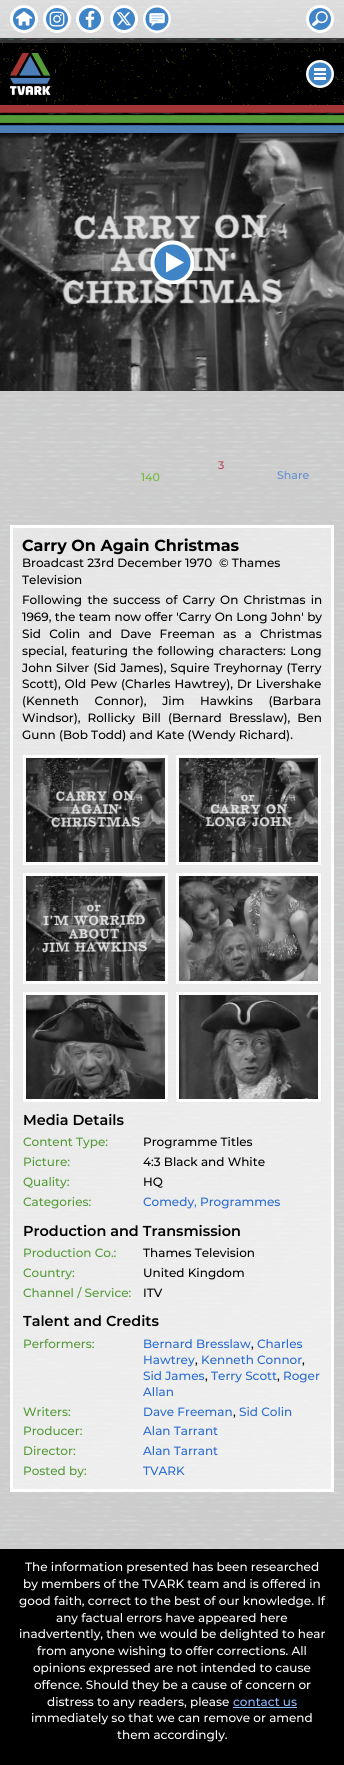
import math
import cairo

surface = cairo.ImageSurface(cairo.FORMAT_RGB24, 344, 1765)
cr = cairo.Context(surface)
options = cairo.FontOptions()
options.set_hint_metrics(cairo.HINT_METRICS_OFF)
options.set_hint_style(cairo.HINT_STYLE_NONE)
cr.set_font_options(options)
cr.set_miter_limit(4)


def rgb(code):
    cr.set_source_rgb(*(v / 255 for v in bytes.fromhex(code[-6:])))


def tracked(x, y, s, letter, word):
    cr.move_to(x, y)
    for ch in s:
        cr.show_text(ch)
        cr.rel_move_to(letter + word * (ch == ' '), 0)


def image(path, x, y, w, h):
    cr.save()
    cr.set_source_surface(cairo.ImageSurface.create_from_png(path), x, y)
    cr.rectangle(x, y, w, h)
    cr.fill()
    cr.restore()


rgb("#ffffff")
cr.paint()
image("img/1.png", 0, 0, 344, 1549)
image("img/2.png", 0, 105, 344, 28)
cr.set_source_rgba(1, 1, 1, 0.8)
cr.rectangle(0, 0, 344, 38)
cr.fill()
image("img/3.png", 10, 5, 28, 28)
image("img/4.png", 43, 5, 28, 28)
image("img/5.png", 76, 5, 28, 28)
image("img/6.png", 110, 5, 28, 28)
image("img/7.png", 143, 5, 28, 28)
image("img/8.png", 306, 5, 28, 28)
image("img/9.png", 0, 43, 344, 62)
image("img/10.png", 10, 53, 41, 42)
rgb("#ffffff")
cr.arc(320, 74, 14, 0, 2 * math.pi)
cr.fill()
rgb("#3e84c7")
cr.arc(320, 74, 11.5, 0, 2 * math.pi)
cr.fill()
rgb("#ffffff")
cr.rectangle(314, 73, 12, 2)
cr.rectangle(314, 77, 12, 3)
cr.rectangle(314, 68, 12, 3)
cr.fill()
cr.set_source_rgba(1, 1, 1, 0.8)
cr.rectangle(0, 391, 344, 1158)
cr.fill()
gradient = cairo.LinearGradient(-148, 689, 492, 1328)
gradient.add_color_stop_rgba(0, 1, 1, 1, 0.5)
gradient.add_color_stop_rgba(1, 1, 1, 1, 0.7)
cr.set_source(gradient)
cr.rectangle(13, 528, 318, 961)
cr.fill()
cr.rectangle(11.5, 526.5, 321, 964)
rgb("#ffffff")
cr.set_line_width(3)
cr.stroke()
image("img/11.png", 0, 133, 344, 258)
cr.save()
cr.rectangle(150, 240, 44, 44)
cr.clip()
cr.arc(172.5, 262.5, 22, 0, 2 * math.pi)
cr.fill()
cr.restore()
rgb("#3e84c7")
cr.arc(172.5, 262.5, 18, 0, 2 * math.pi)
cr.fill()
rgb("#ffffff")
cr.new_path()
cr.move_to(166, 272.5)
cr.line_to(184, 262.5)
cr.line_to(166, 252)
cr.close_path()
cr.fill()
cr.rectangle(22.5, 754.5, 146, 111)
cr.fill_preserve()
rgb("#eaeaea")
cr.set_line_width(1)
cr.stroke()
image("img/12.png", 26, 758, 139, 104)
rgb("#ffffff")
cr.rectangle(175.5, 754.5, 146, 111)
cr.fill_preserve()
rgb("#eaeaea")
cr.stroke()
image("img/13.png", 179, 758, 139, 104)
rgb("#ffffff")
cr.rectangle(22.5, 872.5, 146, 112)
cr.fill_preserve()
rgb("#eaeaea")
cr.stroke()
image("img/14.png", 26, 876, 139, 105)
rgb("#ffffff")
cr.rectangle(175.5, 872.5, 146, 112)
cr.fill_preserve()
rgb("#eaeaea")
cr.stroke()
image("img/15.png", 179, 876, 139, 105)
rgb("#ffffff")
cr.rectangle(22.5, 991.5, 146, 111)
cr.fill_preserve()
rgb("#eaeaea")
cr.stroke()
image("img/16.png", 26, 995, 139, 104)
rgb("#ffffff")
cr.rectangle(175.5, 991.5, 146, 111)
cr.fill_preserve()
rgb("#eaeaea")
cr.stroke()
image("img/17.png", 179, 995, 139, 104)
rgb("#000000")
cr.rectangle(0, 1549, 344, 216)
cr.fill()
rgb("#8dbbff")
cr.rectangle(233, 1707, 64, 1)
cr.fill()
cr.select_font_face("Montserrat Medium")
cr.set_font_size(11)
rgb("#b8495a")
cr.move_to(218, 469)
cr.show_text("3")
rgb("#6cb938")
cr.move_to(141, 481)
cr.show_text("140")
rgb("#628ecf")
cr.move_to(277, 479)
cr.show_text("Share")
cr.select_font_face("Montserrat", cairo.FONT_SLANT_NORMAL, cairo.FONT_WEIGHT_BOLD)
cr.set_font_size(16)
rgb("#000000")
cr.move_to(22, 551)
cr.show_text("Carry On Again Christmas")
cr.select_font_face("Montserrat Medium")
cr.set_font_size(12)
for x, y, s in [
    (22, 567, "Broadcast 23rd December 1970"),
    (219, 567, "© Thames"),
    (22, 584, "Television"),
]:
    cr.move_to(x, y)
    cr.show_text(s)
tracked(22, 604, "Following the success of Carry On Christmas in", 0, 2)
tracked(22, 621, "1969, the team now offer 'Carry On Long John' by", 0, 0.25)
tracked(22, 638, "Sid Colin and Dave Freeman as a Christmas", 0, 5)
tracked(22, 655, "special, featuring the following characters: Long", 0, 1.25)
tracked(22, 672, "John Silver (Sid James), Squire Treyhornay (Terry", 0, 0.75)
tracked(22, 688, "Scott), Old Pew (Charles Hawtrey), Dr Livershake", 0, 0.75)
tracked(22, 705, "(Kenneth Connor), Jim Hawkins (Barbara", 0, 12.5)
tracked(22, 722, "Windsor), Rollicky Bill (Bernard Bresslaw), Ben", 0, 3.75)
cr.move_to(22, 739)
cr.show_text("Gunn (Bob Todd) and Kate (Wendy Richard).")
cr.select_font_face("Montserrat SemiBold")
cr.set_font_size(14.4)
cr.move_to(23, 1125)
cr.show_text("Media Details")
cr.select_font_face("Montserrat Medium")
cr.set_font_size(12)
rgb("#559b38")
cr.move_to(23, 1146)
cr.show_text("Content Type:")
rgb("#000000")
cr.move_to(143, 1146)
cr.show_text("Programme Titles")
rgb("#559b38")
cr.move_to(23, 1166)
cr.show_text("Picture:")
rgb("#000000")
cr.move_to(143, 1166)
cr.show_text("4:3 Black and White")
rgb("#559b38")
cr.move_to(23, 1186)
cr.show_text("Quality:")
rgb("#000000")
cr.move_to(143, 1186)
cr.show_text("HQ")
rgb("#559b38")
cr.move_to(23, 1206)
cr.show_text("Categories:")
rgb("#296bcf")
cr.move_to(143, 1206)
cr.show_text("Comedy")
rgb("#4e7eb7")
cr.move_to(194, 1206)
cr.show_text(",")
rgb("#296bcf")
cr.move_to(200, 1206)
cr.show_text("Programmes")
cr.select_font_face("Montserrat SemiBold")
cr.set_font_size(14.4)
rgb("#000000")
cr.move_to(23, 1236)
cr.show_text("Production and Transmission")
cr.select_font_face("Montserrat Medium")
cr.set_font_size(12)
rgb("#559b38")
cr.move_to(23, 1257)
cr.show_text("Production Co.:")
rgb("#000000")
cr.move_to(143, 1257)
cr.show_text("Thames Television")
rgb("#559b38")
cr.move_to(23, 1277)
cr.show_text("Country:")
rgb("#000000")
cr.move_to(143, 1277)
cr.show_text("United Kingdom")
rgb("#559b38")
cr.move_to(23, 1297)
cr.show_text("Channel / Service:")
rgb("#000000")
cr.move_to(143, 1297)
cr.show_text("ITV")
cr.select_font_face("Montserrat SemiBold")
cr.set_font_size(14.4)
cr.move_to(23, 1326)
cr.show_text("Talent and Credits")
cr.select_font_face("Montserrat Medium")
cr.set_font_size(12)
rgb("#559b38")
cr.move_to(23, 1348)
cr.show_text("Performers:")
rgb("#296bcf")
cr.move_to(143, 1348)
cr.show_text("Bernard Bresslaw")
rgb("#000000")
cr.move_to(251, 1348)
cr.show_text(",")
rgb("#296bcf")
cr.move_to(257, 1348)
cr.show_text("Charles")
cr.move_to(143, 1364)
cr.show_text("Hawtrey")
rgb("#000000")
cr.move_to(195, 1364)
cr.show_text(",")
rgb("#296bcf")
cr.move_to(201, 1364)
cr.show_text("Kenneth Connor")
rgb("#000000")
cr.move_to(302, 1364)
cr.show_text(",")
rgb("#296bcf")
cr.move_to(143, 1380)
cr.show_text("Sid James")
rgb("#000000")
cr.move_to(205, 1380)
cr.show_text(",")
rgb("#296bcf")
cr.move_to(211, 1380)
cr.show_text("Terry Scott")
rgb("#000000")
cr.move_to(277, 1380)
cr.show_text(",")
rgb("#296bcf")
cr.move_to(283, 1380)
cr.show_text("Roger")
cr.move_to(143, 1396)
cr.show_text("Allan")
rgb("#559b38")
cr.move_to(23, 1416)
cr.show_text("Writers:")
rgb("#296bcf")
cr.move_to(143, 1416)
cr.show_text("Dave Freeman")
rgb("#000000")
cr.move_to(233, 1416)
cr.show_text(",")
rgb("#296bcf")
cr.move_to(239, 1416)
cr.show_text("Sid Colin")
rgb("#559b38")
cr.move_to(23, 1435)
cr.show_text("Producer:")
rgb("#296bcf")
cr.move_to(143, 1435)
cr.show_text("Alan Tarrant")
rgb("#559b38")
cr.move_to(23, 1455)
cr.show_text("Director:")
rgb("#296bcf")
cr.move_to(143, 1455)
cr.show_text("Alan Tarrant")
rgb("#559b38")
cr.move_to(23, 1475)
cr.show_text("Posted by:")
rgb("#296bcf")
cr.move_to(143, 1475)
cr.show_text("TVARK")
rgb("#ffffff")
for x, y, s in [
    (25, 1571, "The information presented has been researched"),
    (23, 1588, "by members of the TVARK team and is offered in"),
    (19, 1605, "good faith, correct to the best of our knowledge. If"),
    (56, 1622, "any factual errors have appeared here"),
    (19, 1638, "inadvertently, then we would be delighted to hear"),
    (37, 1655, "from anyone wishing to offer corrections. All"),
    (33, 1672, "opinions expressed are not intended to cause"),
    (34, 1689, "offence. Should they be a cause of concern or"),
    (47, 1706, "distress to any readers, please"),
]:
    cr.move_to(x, y)
    cr.show_text(s)
rgb("#8dbbff")
cr.move_to(233, 1706)
cr.show_text("contact us")
rgb("#ffffff")
cr.move_to(31, 1722)
cr.show_text("immediately so that we can remove or amend")
cr.move_to(117, 1739)
cr.show_text("them accordingly.")
surface.write_to_png("page.png")
